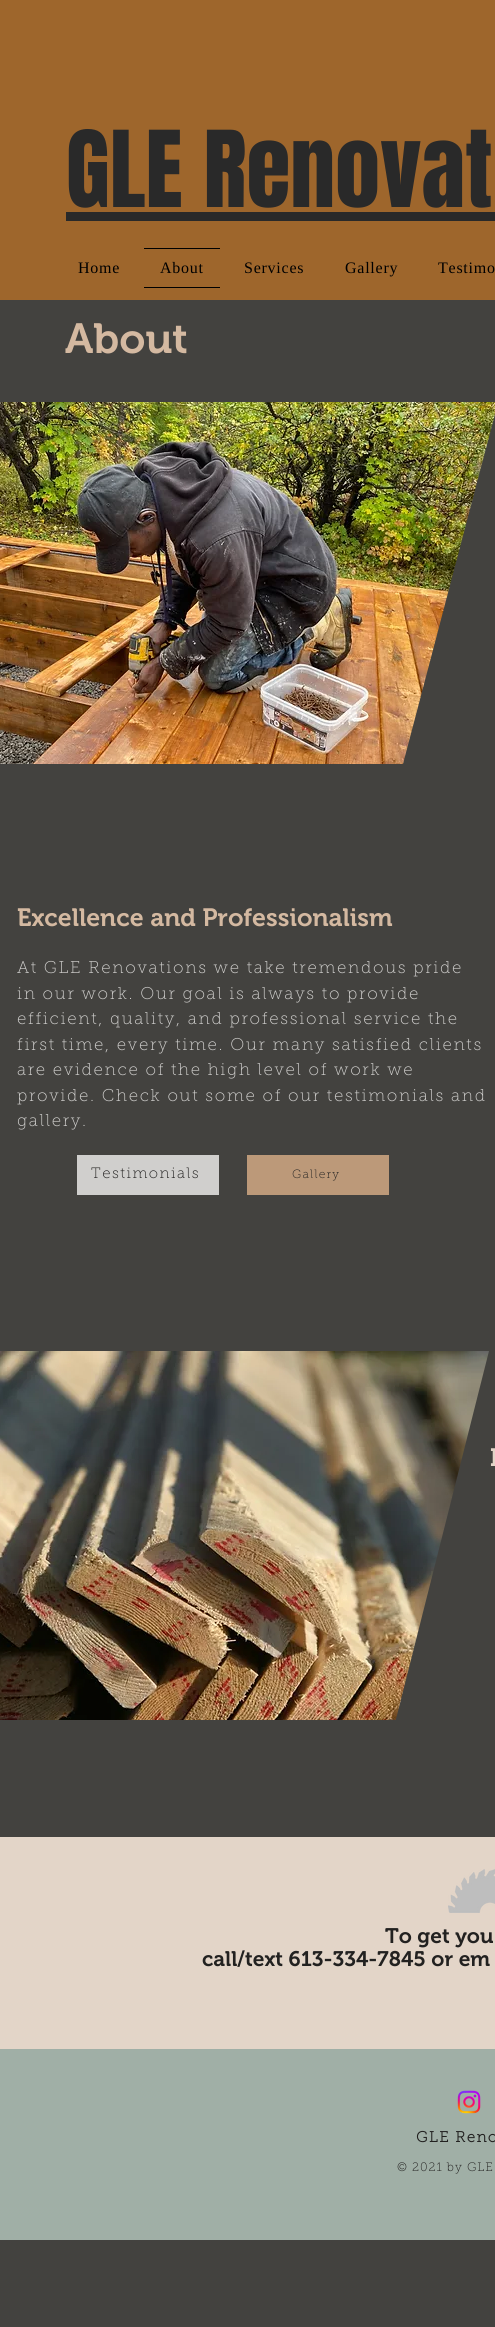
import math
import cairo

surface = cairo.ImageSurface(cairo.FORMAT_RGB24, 495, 2327)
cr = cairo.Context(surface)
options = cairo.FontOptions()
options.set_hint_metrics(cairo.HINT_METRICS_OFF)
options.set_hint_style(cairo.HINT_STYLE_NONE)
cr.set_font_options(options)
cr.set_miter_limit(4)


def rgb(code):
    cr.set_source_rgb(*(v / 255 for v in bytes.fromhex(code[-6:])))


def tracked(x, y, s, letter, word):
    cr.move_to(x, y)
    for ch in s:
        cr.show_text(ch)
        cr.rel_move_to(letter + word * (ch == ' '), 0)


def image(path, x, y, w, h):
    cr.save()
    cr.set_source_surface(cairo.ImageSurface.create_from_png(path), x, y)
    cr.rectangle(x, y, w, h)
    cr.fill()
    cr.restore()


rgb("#43423f")
cr.paint()
for x, y, w, h, color in [
    (0, 0, 495, 300, "#9e662c"),
    (66, 212, 429, 9, "#292929"),
    (144, 248, 76, 1, "#000000"),
    (144, 287, 76, 1, "#000000"),
]:
    rgb(color)
    cr.rectangle(x, y, w, h)
    cr.fill()
image("img/1.png", 0, 402, 495, 362)
rgb("#43423f")
cr.new_path()
cr.move_to(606, 764)
cr.line_to(403, 764)
cr.line_to(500, 395)
cr.line_to(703, 395)
cr.close_path()
cr.fill()
rgb("#d0cfcd")
cr.rectangle(77, 1155, 142, 40)
cr.fill()
rgb("#bc9979")
cr.rectangle(247, 1155, 142, 40)
cr.fill()
image("img/2.png", 0, 1351, 489, 369)
rgb("#43423f")
cr.new_path()
cr.move_to(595, 1735)
cr.line_to(392, 1735)
cr.line_to(489, 1351)
cr.line_to(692, 1351)
cr.close_path()
cr.fill()
rgb("#e3d5c8")
cr.rectangle(0, 1837, 495, 212)
cr.fill()
image("img/3.png", 448, 1869, 47, 44)
rgb("#a0afa6")
cr.rectangle(0, 2049, 495, 191)
cr.fill()
image("img/4.png", 457, 2090, 24, 24)
cr.select_font_face("Anton")
cr.set_font_size(90)
rgb("#292929")
cr.move_to(66, 207)
cr.show_text("GLE Renovat")
cr.select_font_face("Liberation Serif")
cr.set_font_size(16)
rgb("#000000")
for x, y, s in [
    (78, 273, "Home"),
    (160, 273, "About"),
    (244, 273, "Services"),
    (345, 273, "Gallery"),
    (438, 273, "Testimo"),
]:
    tracked(x, y, s, 0.75, 0)
cr.select_font_face("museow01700 SemiBold")
cr.set_font_size(42)
rgb("#d4b9a1")
cr.move_to(65, 353)
cr.show_text("About")
cr.set_font_size(25)
cr.move_to(17, 926)
cr.show_text("Excellence and Professionalism")
cr.select_font_face("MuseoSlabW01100 Thin")
cr.set_font_size(17)
rgb("#d0cfcd")
for x, y, s in [
    (17, 973, "At GLE Renovations we take tremendous pride"),
    (17, 999, "in our work. Our goal is always to provide"),
    (17, 1024, "efficient, quality, and professional service the"),
    (17, 1050, "first time, every time. Our many satisfied clients"),
    (17, 1075, "are evidence of the high level of work we"),
    (17, 1101, "provide. Check out some of our testimonials and"),
    (17, 1126, "gallery."),
]:
    tracked(x, y, s, 1.7, 0)
cr.set_font_size(15)
rgb("#222120")
tracked(91, 1178, "Testimonials", 1.5, 0)
cr.set_font_size(12)
tracked(292, 1178, "Gallery", 1.25, 0)
cr.select_font_face("museow01700 SemiBold")
cr.set_font_size(25)
rgb("#e3d5c8")
cr.move_to(490, 1466)
cr.show_text("I")
cr.set_font_size(21)
rgb("#222120")
cr.move_to(385, 1943)
cr.show_text("To get you")
cr.move_to(202, 1966)
cr.show_text("call/text 613-334-7845 or em")
cr.select_font_face("MuseoSlabW01100", cairo.FONT_SLANT_NORMAL, cairo.FONT_WEIGHT_BOLD)
cr.set_font_size(15)
tracked(416, 2142, "GLE Reno", 1.5, 0)
cr.select_font_face("MuseoSlabW01100 Thin")
cr.set_font_size(12.25)
tracked(397, 2171, "© 2021 by GLE", 1, 0)
surface.write_to_png("page.png")
